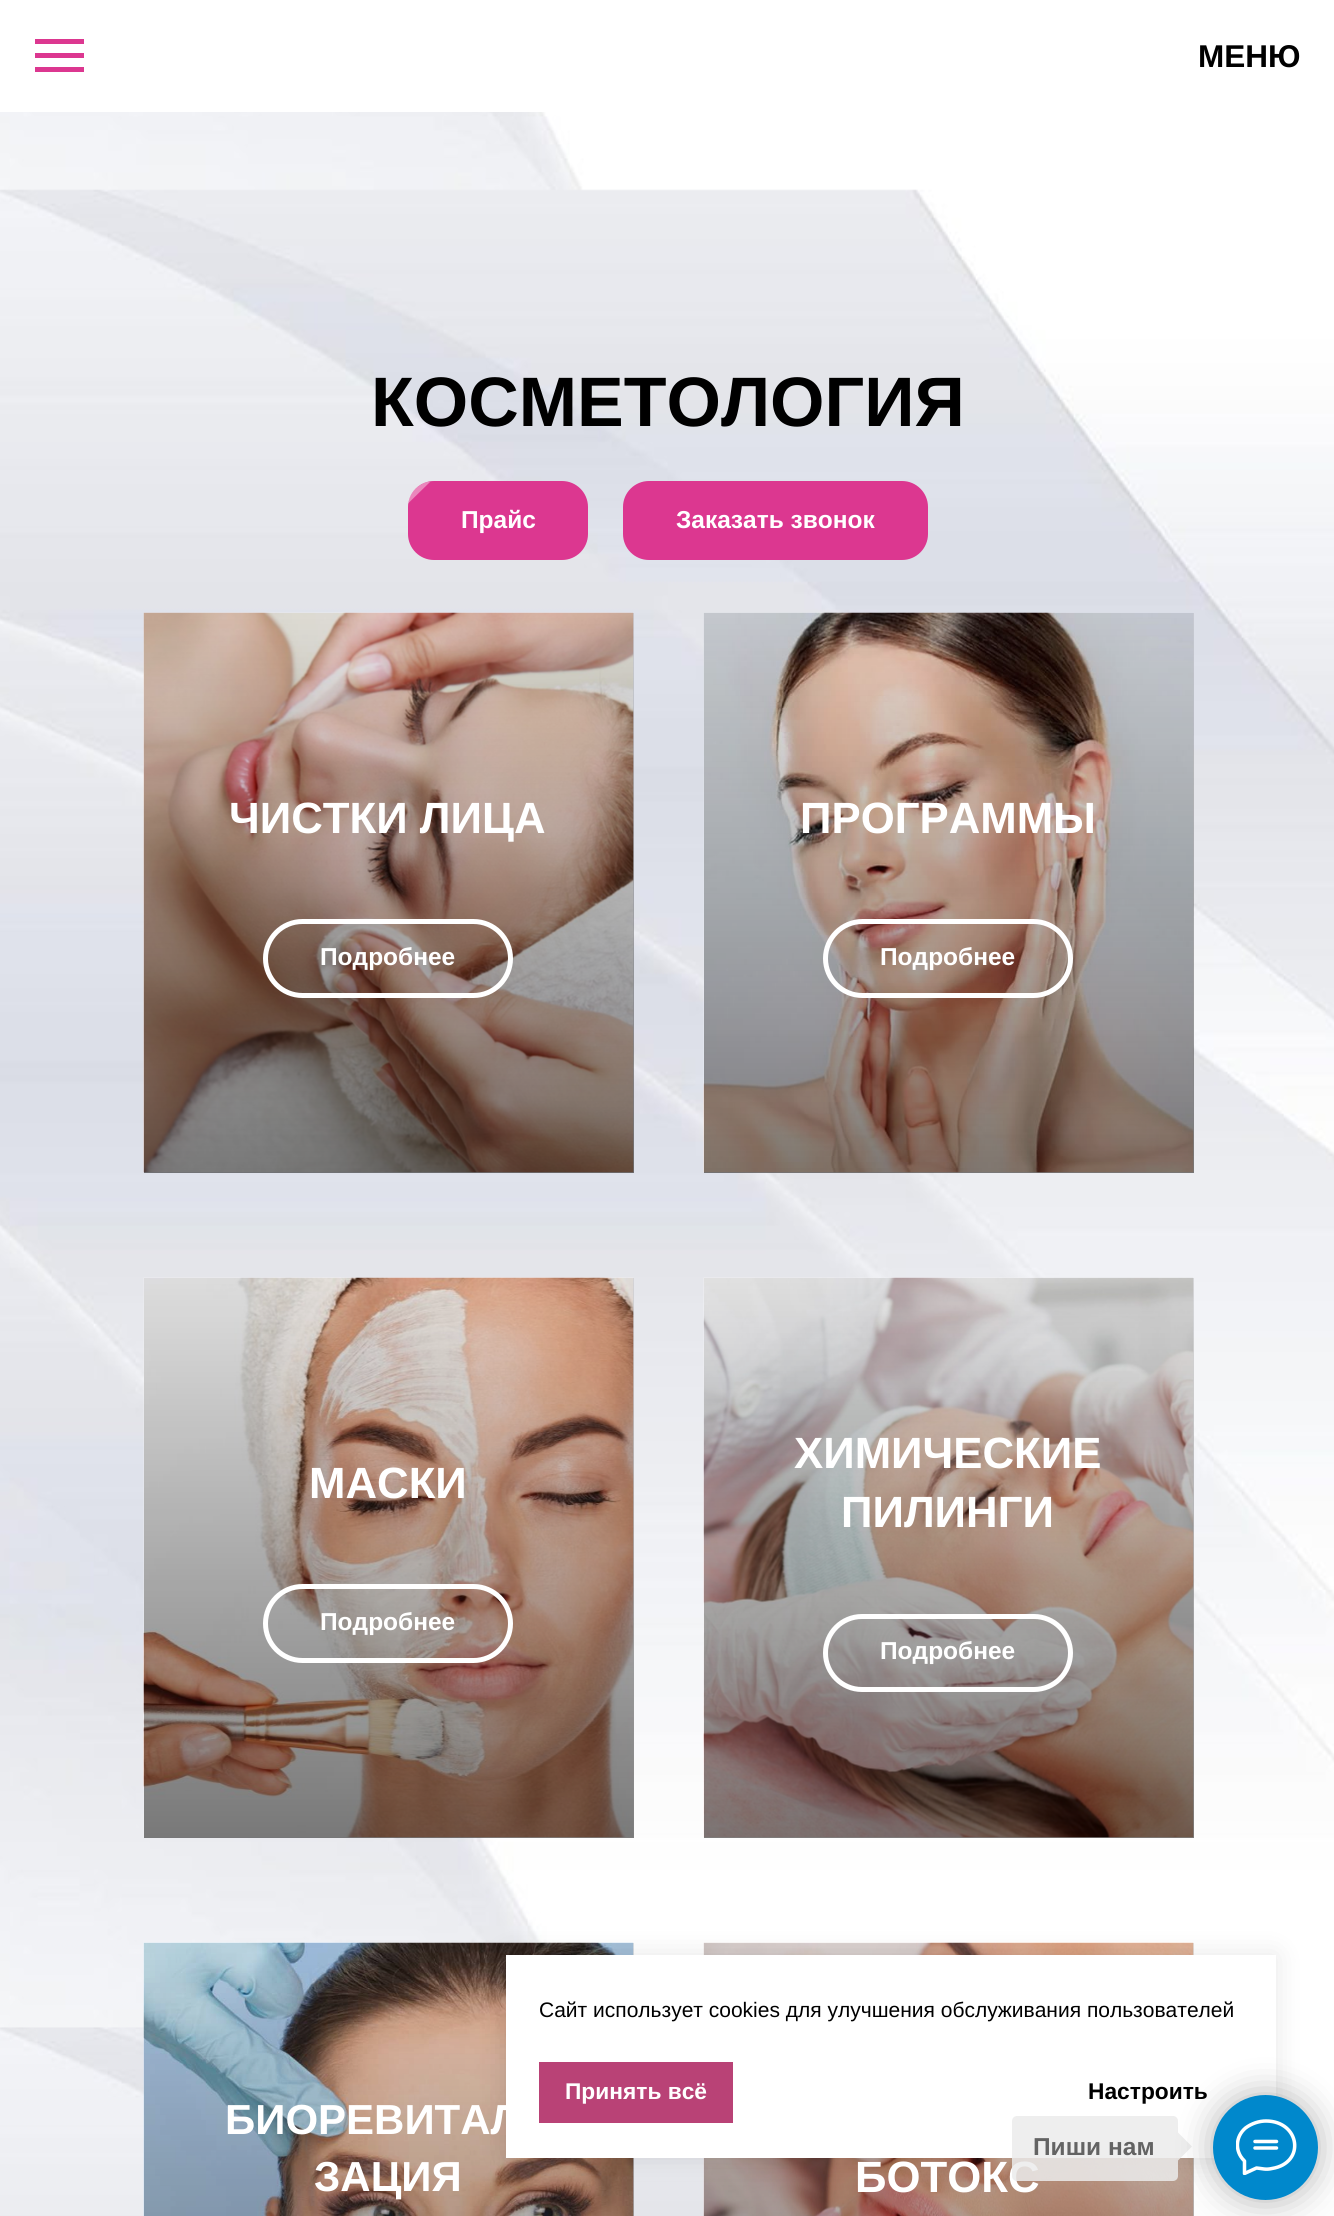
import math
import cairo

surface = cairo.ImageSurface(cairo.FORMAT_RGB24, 1334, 2216)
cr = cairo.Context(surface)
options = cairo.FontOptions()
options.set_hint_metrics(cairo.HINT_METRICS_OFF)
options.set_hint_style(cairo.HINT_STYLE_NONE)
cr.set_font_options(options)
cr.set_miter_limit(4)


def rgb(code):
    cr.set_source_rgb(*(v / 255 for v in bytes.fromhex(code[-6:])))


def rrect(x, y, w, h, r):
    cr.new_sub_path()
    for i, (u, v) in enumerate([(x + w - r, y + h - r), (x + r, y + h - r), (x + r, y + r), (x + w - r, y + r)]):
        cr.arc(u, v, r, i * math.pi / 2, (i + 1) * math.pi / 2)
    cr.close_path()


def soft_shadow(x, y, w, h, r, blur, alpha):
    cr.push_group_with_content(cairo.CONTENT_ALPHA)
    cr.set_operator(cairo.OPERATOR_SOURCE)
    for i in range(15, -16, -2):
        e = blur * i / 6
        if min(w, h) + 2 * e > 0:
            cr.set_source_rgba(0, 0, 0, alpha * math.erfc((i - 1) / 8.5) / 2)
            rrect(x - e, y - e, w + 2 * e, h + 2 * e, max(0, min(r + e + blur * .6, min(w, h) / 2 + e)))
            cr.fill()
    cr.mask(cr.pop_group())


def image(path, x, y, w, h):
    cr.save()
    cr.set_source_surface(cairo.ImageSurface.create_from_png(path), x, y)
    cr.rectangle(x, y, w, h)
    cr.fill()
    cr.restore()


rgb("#ffffff")
cr.paint()
for x, y, w, h, color in [
    (35, 39, 49, 5, "#dc3790"),
    (35, 53, 49, 5, "#dc3790"),
    (35, 67, 49, 5, "#dc3790"),
]:
    rgb(color)
    cr.rectangle(x, y, w, h)
    cr.fill()
image("img/1.png", 0, 112, 1334, 2104)
rrect(408, 481, 180, 79, 26)
cr.fill()
gradient = cairo.LinearGradient(312, 521, 391, 521)
gradient.add_color_stop_rgba(0, 1, 1, 1, 0.1)
gradient.add_color_stop_rgba(1, 1, 1, 1, 0.4)
cr.set_source(gradient)
cr.new_path()
cr.move_to(408, 503.5)
cr.curve_to(409.5, 493, 417, 485, 427, 482)
cr.line_to(430, 482)
cr.close_path()
cr.fill()
rgb("#dc3790")
rrect(623, 481, 305, 79, 26)
cr.fill()
image("img/2.png", 143, 612, 491, 561)
gradient = cairo.LinearGradient(388, 613, 389, 1173)
gradient.add_color_stop_rgba(0, 0.059, 0.059, 0.059, 0.1)
gradient.add_color_stop_rgba(1, 0, 0, 0, 0.5)
cr.set_source(gradient)
cr.rectangle(144, 613, 490, 560)
cr.fill()
rrect(265.5, 921.5, 245, 74, 37)
rgb("#ffffff")
cr.set_line_width(5)
cr.stroke()
image("img/3.png", 703, 612, 491, 561)
gradient = cairo.LinearGradient(949, 613, 949, 1173)
gradient.add_color_stop_rgba(0, 0.059, 0.059, 0.059, 0.1)
gradient.add_color_stop_rgba(1, 0, 0, 0, 0.5)
cr.set_source(gradient)
cr.rectangle(704, 613, 490, 560)
cr.fill()
rrect(825.5, 921.5, 245, 74, 37)
rgb("#ffffff")
cr.stroke()
image("img/4.png", 143, 1277, 491, 561)
gradient = cairo.LinearGradient(388, 1278, 389, 1838)
gradient.add_color_stop_rgba(0, 0.059, 0.059, 0.059, 0.1)
gradient.add_color_stop_rgba(1, 0, 0, 0, 0.5)
cr.set_source(gradient)
cr.rectangle(144, 1278, 490, 560)
cr.fill()
rrect(265.5, 1586.5, 245, 74, 37)
rgb("#ffffff")
cr.stroke()
image("img/5.png", 703, 1277, 491, 561)
gradient = cairo.LinearGradient(949, 1278, 949, 1838)
gradient.add_color_stop_rgba(0, 0.059, 0.059, 0.059, 0.1)
gradient.add_color_stop_rgba(1, 0, 0, 0, 0.5)
cr.set_source(gradient)
cr.rectangle(704, 1278, 490, 560)
cr.fill()
rrect(825.5, 1616.5, 245, 73, 36.5)
rgb("#ffffff")
cr.stroke()
image("img/6.png", 143, 1942, 491, 274)
gradient = cairo.LinearGradient(388, 1943, 389, 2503)
gradient.add_color_stop_rgba(0, 0.059, 0.059, 0.059, 0.1)
gradient.add_color_stop_rgba(1, 0, 0, 0, 0.5)
cr.set_source(gradient)
cr.rectangle(144, 1943, 490, 273)
cr.fill()
image("img/7.png", 703, 1942, 491, 274)
gradient = cairo.LinearGradient(949, 1943, 949, 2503)
gradient.add_color_stop_rgba(0, 0.059, 0.059, 0.059, 0.1)
gradient.add_color_stop_rgba(1, 0, 0, 0, 0.5)
cr.set_source(gradient)
cr.rectangle(704, 1943, 490, 273)
cr.fill()
rgb("#000000")
soft_shadow(506, 1955, 770, 203, 0, 13, 0.1)
rgb("#ffffff")
cr.rectangle(506, 1955, 770, 203)
cr.fill()
rgb("#b94276")
cr.rectangle(539, 2062, 194, 61)
cr.fill()
cr.set_source_rgba(0.922, 0.922, 0.922, 0.85)
cr.new_path()
cr.move_to(1178, 2160.5)
cr.line_to(1178, 2132.5)
cr.line_to(1192, 2146.5)
cr.close_path()
cr.fill()
cr.select_font_face("Liberation Sans", cairo.FONT_SLANT_NORMAL, cairo.FONT_WEIGHT_BOLD)
cr.set_font_size(31.5)
rgb("#000000")
cr.move_to(1198, 67)
cr.show_text("МЕНЮ")
cr.set_font_size(70)
cr.move_to(371, 426)
cr.show_text("КОСМЕТОЛОГИЯ")
cr.set_font_size(24.5)
rgb("#ffffff")
cr.move_to(461, 528)
cr.show_text("Прайс")
cr.move_to(676, 528)
cr.show_text("Заказать звонок")
cr.set_font_size(43.75)
cr.move_to(229, 833)
cr.show_text("ЧИСТКИ ЛИЦА")
cr.set_font_size(24.5)
cr.move_to(320, 965)
cr.show_text("Подробнее")
cr.set_font_size(43.75)
cr.move_to(800, 833)
cr.show_text("ПРОГРАММЫ")
cr.set_font_size(24.5)
cr.move_to(880, 965)
cr.show_text("Подробнее")
cr.set_font_size(43.75)
cr.move_to(309, 1498)
cr.show_text("МАСКИ")
cr.set_font_size(24.5)
cr.move_to(320, 1630)
cr.show_text("Подробнее")
cr.set_font_size(43.75)
cr.move_to(794, 1468)
cr.show_text("ХИМИЧЕСКИЕ")
cr.move_to(841, 1527)
cr.show_text("ПИЛИНГИ")
cr.set_font_size(24.5)
cr.move_to(880, 1659)
cr.show_text("Подробнее")
cr.set_font_size(42)
cr.move_to(225, 2134)
cr.show_text("БИОРЕВИТАЛ")
cr.move_to(314, 2191)
cr.show_text("ЗАЦИЯ")
cr.set_font_size(43.75)
cr.move_to(855, 2192)
cr.show_text("БОТОКС")
cr.select_font_face("Liberation Sans")
cr.set_font_size(21)
rgb("#000000")
cr.move_to(539, 2017)
cr.show_text("Сайт использует cookies для улучшения обслуживания пользователей")
cr.select_font_face("Liberation Sans", cairo.FONT_SLANT_NORMAL, cairo.FONT_WEIGHT_BOLD)
cr.set_font_size(22.75)
rgb("#ffffff")
cr.move_to(565, 2099)
cr.show_text("Принять всё")
rgb("#000000")
cr.move_to(1088, 2099)
cr.show_text("Настроить")
cr.set_source_rgba(0.922, 0.922, 0.922, 0.85)
rrect(1012, 2116, 166, 65, 5)
cr.fill()
cr.set_font_size(24.5)
rgb("#636363")
cr.move_to(1033, 2155)
cr.show_text("Пиши нам")
rgb("#000000")
soft_shadow(1213, 2095, 105, 105, 52.5, 17.5, 0.3)
rgb("#0088cc")
cr.arc(1265.5, 2147.5, 52.5, 0, 2 * math.pi)
cr.fill()
cr.save()
cr.rectangle(1236, 2119, 61, 56)
cr.clip()
cr.new_path()
cr.move_to(1255, 2141.5)
cr.line_to(1276.5, 2141.5)
cr.move_to(1255, 2148)
cr.line_to(1276.5, 2148)
cr.move_to(1244, 2160.5)
cr.curve_to(1234.5, 2151, 1235.5, 2136.5, 1245.5, 2128)
cr.curve_to(1251.5, 2123.5, 1259, 2121, 1266, 2121)
cr.curve_to(1300, 2121, 1306, 2163, 1272, 2168.5)
cr.curve_to(1265.5, 2170, 1262.5, 2168.5, 1256.5, 2168)
cr.line_to(1244.5, 2173.5)
cr.line_to(1244.5, 2161)
cr.close_path()
rgb("#ffffff")
cr.set_line_width(3.5)
cr.set_line_cap(cairo.LINE_CAP_ROUND)
cr.set_line_join(cairo.LINE_JOIN_ROUND)
cr.stroke()
cr.restore()
surface.write_to_png("page.png")
